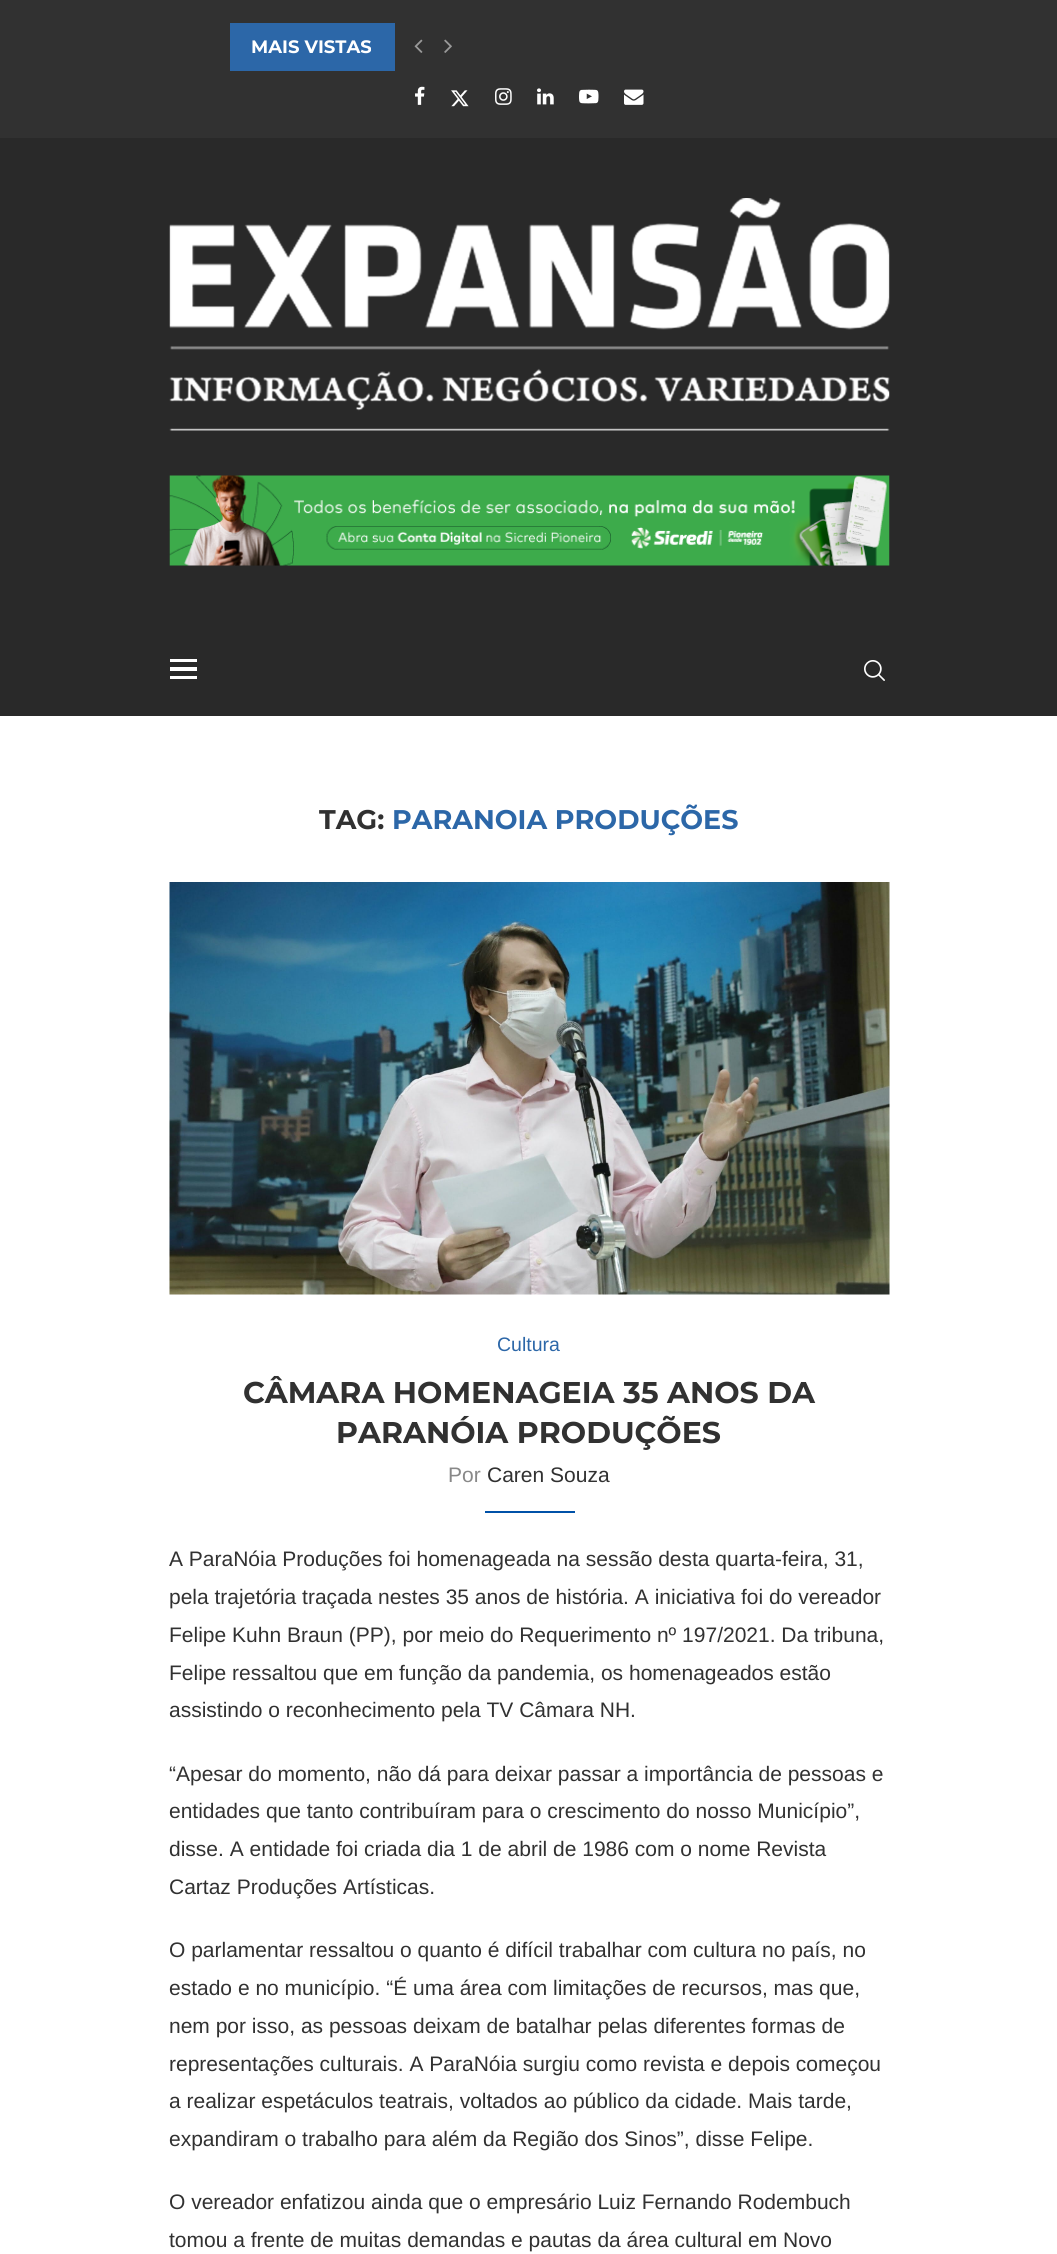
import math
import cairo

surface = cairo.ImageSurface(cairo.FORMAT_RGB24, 1057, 2254)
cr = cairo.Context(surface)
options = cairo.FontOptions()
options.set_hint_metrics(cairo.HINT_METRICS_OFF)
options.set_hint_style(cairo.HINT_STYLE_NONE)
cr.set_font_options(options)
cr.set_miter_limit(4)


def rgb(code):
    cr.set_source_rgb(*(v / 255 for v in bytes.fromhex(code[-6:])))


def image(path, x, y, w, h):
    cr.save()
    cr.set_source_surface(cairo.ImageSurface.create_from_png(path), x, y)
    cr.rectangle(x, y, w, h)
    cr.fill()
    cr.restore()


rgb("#ffffff")
cr.paint()
rgb("#313131")
cr.rectangle(0, 0, 1057, 138)
cr.fill()
rgb("#2c67a8")
cr.rectangle(230, 23, 165, 48)
cr.fill()
image("img/1.png", 414, 39, 9, 14)
image("img/2.png", 444, 39, 8, 14)
image("img/3.png", 415, 86, 10, 19)
image("img/4.png", 451, 90, 18, 17)
image("img/5.png", 495, 88, 17, 17)
image("img/6.png", 537, 88, 17, 17)
image("img/7.png", 579, 89, 20, 15)
image("img/8.png", 624, 89, 20, 16)
for x, y, w, h, color in [
    (0, 138, 1057, 578, "#292929"),
    (170, 659, 27, 3, "#ffffff"),
    (170, 667, 27, 4, "#ffffff"),
    (170, 676, 27, 3, "#ffffff"),
]:
    rgb(color)
    cr.rectangle(x, y, w, h)
    cr.fill()
image("img/9.png", 864, 660, 21, 21)
image("img/10.png", 169, 198, 721, 233)
image("img/11.png", 169, 475, 721, 91)
image("img/12.png", 169, 882, 721, 413)
rgb("#0051a8")
cr.rectangle(485, 1511, 90, 2)
cr.fill()
cr.select_font_face("Montserrat", cairo.FONT_SLANT_NORMAL, cairo.FONT_WEIGHT_BOLD)
cr.set_font_size(18)
rgb("#ffffff")
cr.move_to(251, 53)
cr.show_text("MAIS VISTAS")
cr.set_font_size(27)
rgb("#313131")
cr.move_to(319, 829)
cr.show_text("TAG:")
rgb("#2c67a8")
cr.move_to(392, 829)
cr.show_text("PARANOIA PRODUÇÕES")
cr.select_font_face("Liberation Sans")
cr.set_font_size(19.5)
cr.move_to(497, 1351)
cr.show_text("Cultura")
cr.select_font_face("Montserrat", cairo.FONT_SLANT_NORMAL, cairo.FONT_WEIGHT_BOLD)
cr.set_font_size(30)
rgb("#313131")
cr.move_to(243, 1403)
cr.show_text("CÂMARA HOMENAGEIA 35 ANOS DA")
cr.move_to(336, 1443)
cr.show_text("PARANÓIA PRODUÇÕES")
cr.select_font_face("Liberation Sans")
cr.set_font_size(21)
rgb("#888888")
cr.move_to(448, 1482)
cr.show_text("Por")
rgb("#313131")
for x, y, s in [
    (487, 1482, "Caren Souza"),
    (169, 1566, "A ParaNóia Produções foi homenageada na sessão desta quarta-feira, 31,"),
    (169, 1604, "pela trajetória traçada nestes 35 anos de história. A iniciativa foi do vereador"),
    (169, 1642, "Felipe Kuhn Braun (PP), por meio do Requerimento nº 197/2021. Da tribuna,"),
    (169, 1680, "Felipe ressaltou que em função da pandemia, os homenageados estão"),
    (169, 1717, "assistindo o reconhecimento pela TV Câmara NH."),
    (169, 1781, "“Apesar do momento, não dá para deixar passar a importância de pessoas e"),
    (169, 1818, "entidades que tanto contribuíram para o crescimento do nosso Município”,"),
    (169, 1856, "disse. A entidade foi criada dia 1 de abril de 1986 com o nome Revista"),
    (169, 1894, "Cartaz Produções Artísticas."),
    (169, 1957, "O parlamentar ressaltou o quanto é difícil trabalhar com cultura no país, no"),
    (169, 1995, "estado e no município. “É uma área com limitações de recursos, mas que,"),
    (169, 2033, "nem por isso, as pessoas deixam de batalhar pelas diferentes formas de"),
    (169, 2071, "representações culturais. A ParaNóia surgiu como revista e depois começou"),
    (169, 2108, "a realizar espetáculos teatrais, voltados ao público da cidade. Mais tarde,"),
    (169, 2146, "expandiram o trabalho para além da Região dos Sinos”, disse Felipe."),
    (169, 2209, "O vereador enfatizou ainda que o empresário Luiz Fernando Rodembuch"),
    (169, 2247, "tomou a frente de muitas demandas e pautas da área cultural em Novo"),
]:
    cr.move_to(x, y)
    cr.show_text(s)
surface.write_to_png("page.png")
